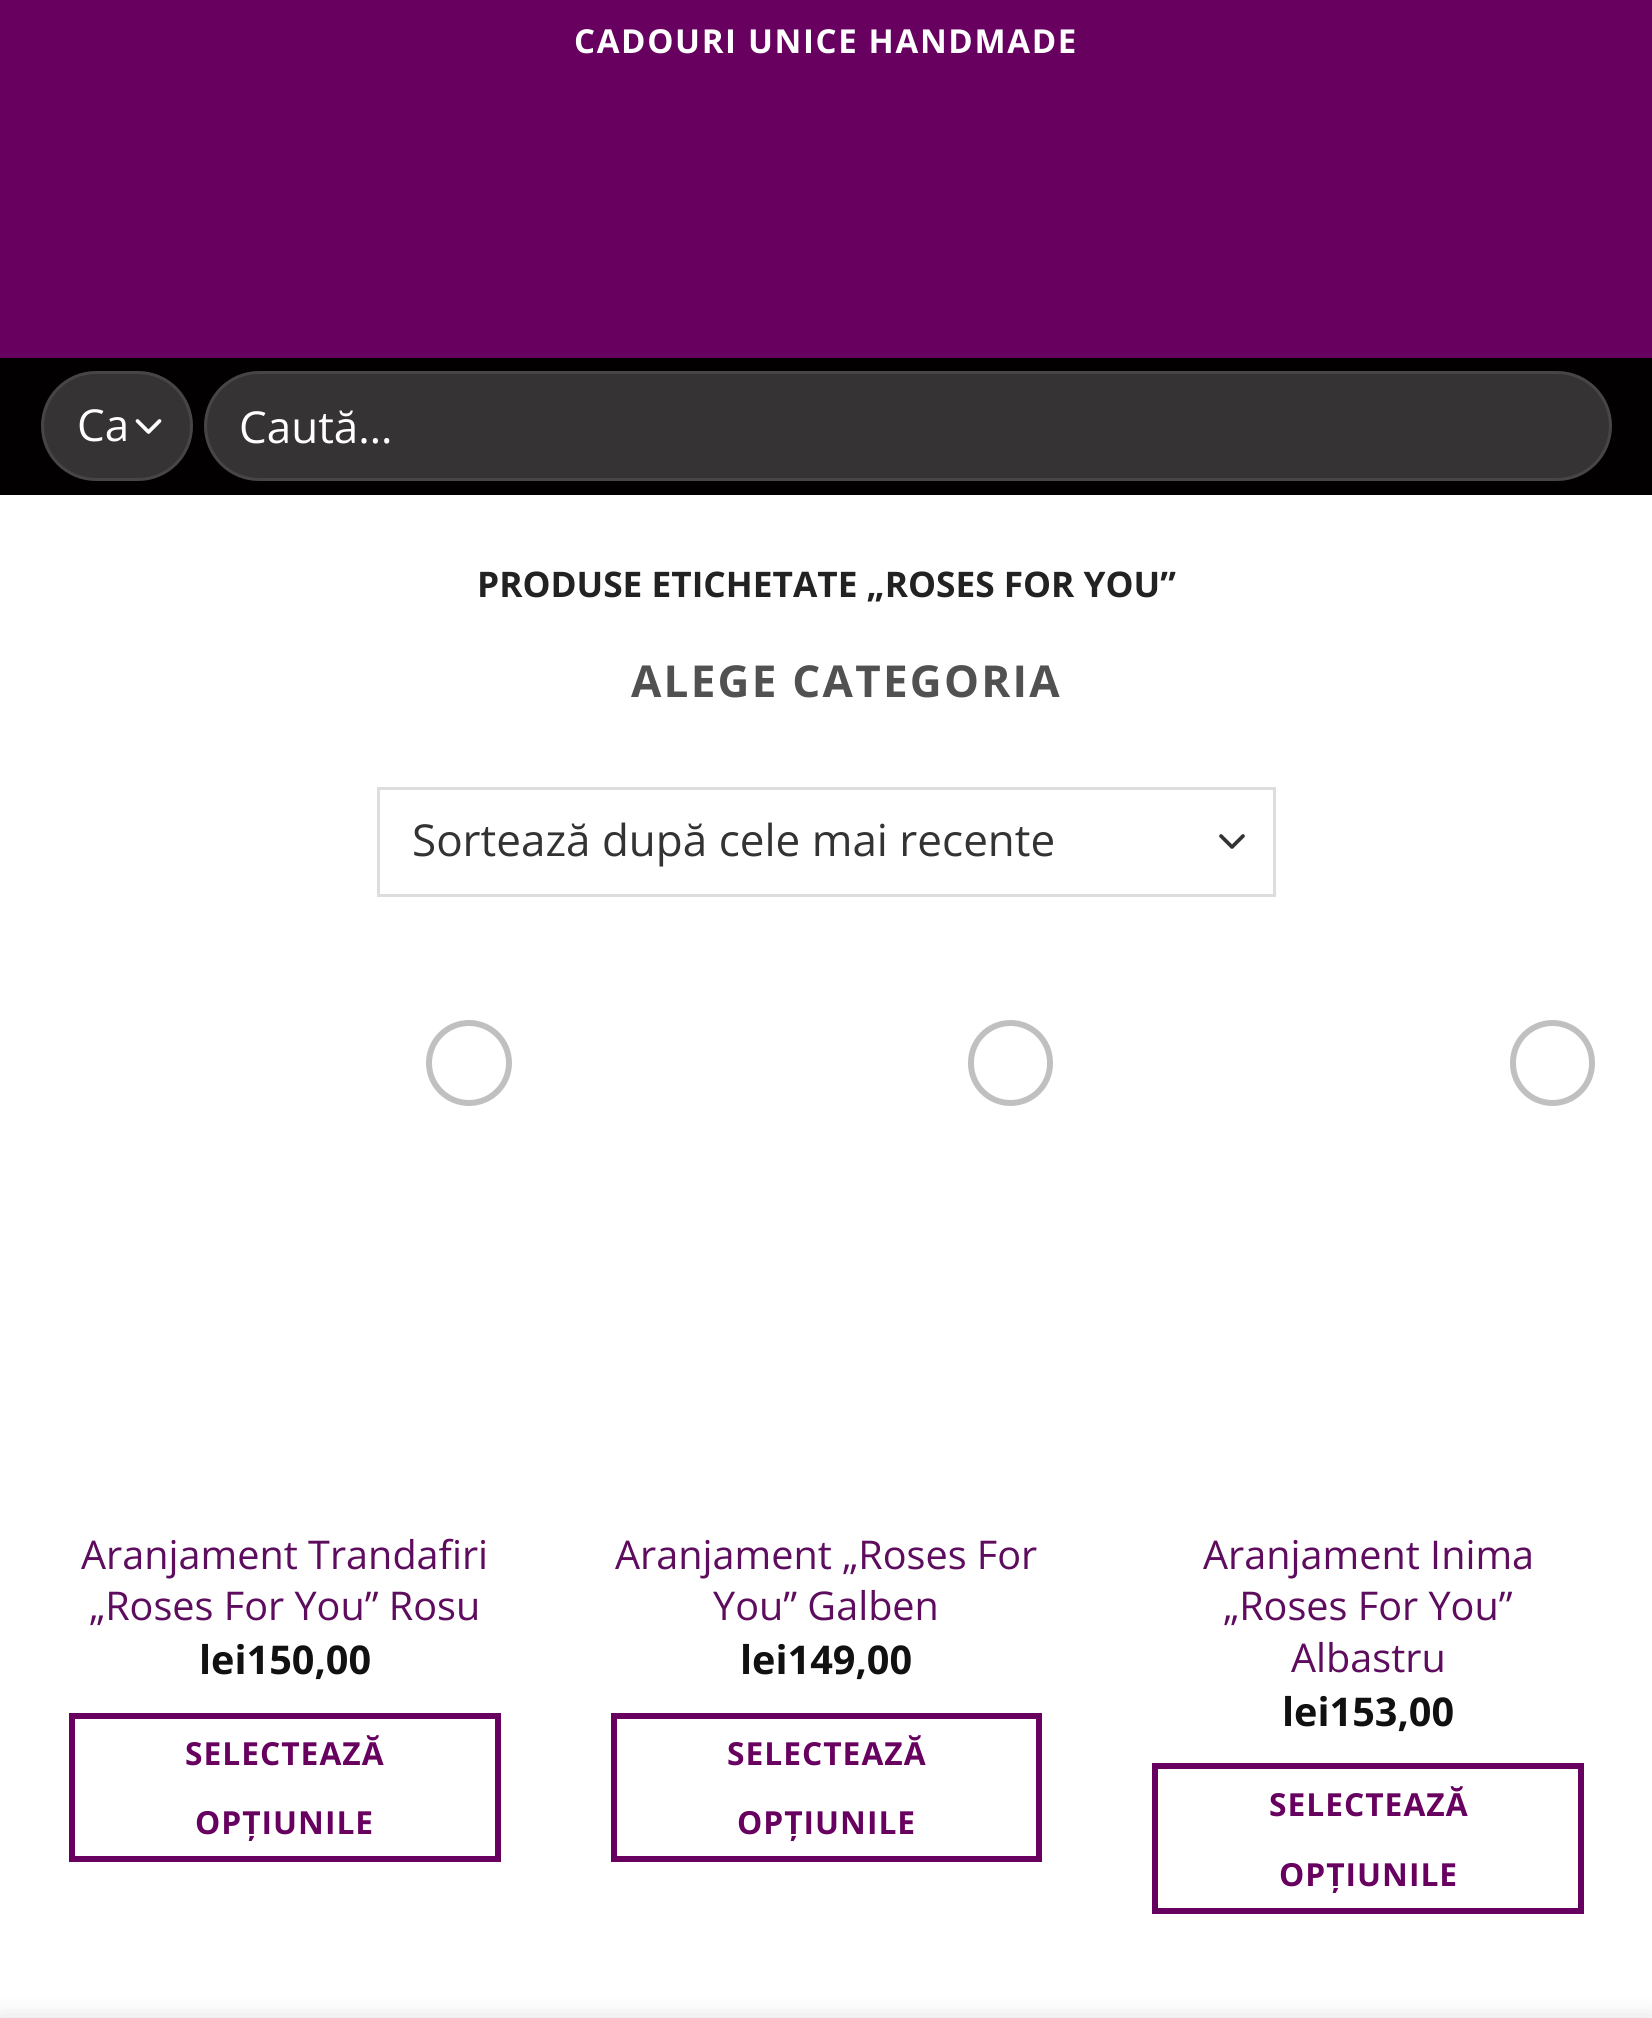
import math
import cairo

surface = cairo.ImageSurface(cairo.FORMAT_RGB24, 1652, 2018)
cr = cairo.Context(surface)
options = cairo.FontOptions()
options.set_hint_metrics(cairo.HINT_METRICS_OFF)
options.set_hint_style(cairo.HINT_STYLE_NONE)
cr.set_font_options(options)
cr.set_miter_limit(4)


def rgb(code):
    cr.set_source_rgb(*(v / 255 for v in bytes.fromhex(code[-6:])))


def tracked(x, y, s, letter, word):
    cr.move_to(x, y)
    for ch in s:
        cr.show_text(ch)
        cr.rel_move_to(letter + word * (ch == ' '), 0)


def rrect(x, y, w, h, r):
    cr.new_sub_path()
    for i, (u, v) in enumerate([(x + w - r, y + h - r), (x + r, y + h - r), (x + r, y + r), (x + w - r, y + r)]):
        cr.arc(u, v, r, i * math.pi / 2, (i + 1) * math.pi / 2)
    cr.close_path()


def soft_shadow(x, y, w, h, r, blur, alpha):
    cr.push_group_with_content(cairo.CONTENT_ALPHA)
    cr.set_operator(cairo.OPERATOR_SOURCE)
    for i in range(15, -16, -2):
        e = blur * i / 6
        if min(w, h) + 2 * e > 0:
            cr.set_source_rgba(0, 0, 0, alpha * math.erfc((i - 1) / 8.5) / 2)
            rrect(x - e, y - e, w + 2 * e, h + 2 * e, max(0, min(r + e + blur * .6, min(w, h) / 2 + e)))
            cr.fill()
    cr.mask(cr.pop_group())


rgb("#ffffff")
cr.paint()
rgb("#68005f")
cr.rectangle(0, 0, 1652, 358)
cr.fill()
rgb("#020000")
cr.rectangle(0, 358, 1652, 137)
cr.fill()
rgb("#353333")
rrect(41, 371, 152, 110, 55)
cr.fill()
cr.new_path()
cr.move_to(137.5, 421)
cr.line_to(148.5, 432)
cr.line_to(159.5, 421)
rgb("#ffffff")
cr.set_line_width(3.7)
cr.set_line_cap(cairo.LINE_CAP_ROUND)
cr.set_line_join(cairo.LINE_JOIN_ROUND)
cr.stroke()
rrect(42.5, 372.5, 149, 107, 53.5)
cr.set_source_rgba(1, 1, 1, 0.09)
cr.set_line_width(3)
cr.set_line_cap(cairo.LINE_CAP_BUTT)
cr.set_line_join(cairo.LINE_JOIN_MITER)
cr.stroke()
rgb("#353333")
rrect(204, 371, 1408, 110, 55)
cr.fill()
rrect(205.5, 372.5, 1405, 107, 53.5)
cr.set_source_rgba(1, 1, 1, 0.09)
cr.stroke()
cr.new_path()
cr.move_to(1221, 836)
cr.line_to(1232, 847)
cr.line_to(1243, 836)
rgb("#333333")
cr.set_line_width(3.7)
cr.set_line_cap(cairo.LINE_CAP_ROUND)
cr.set_line_join(cairo.LINE_JOIN_ROUND)
cr.stroke()
cr.rectangle(378.5, 788.5, 896, 107)
rgb("#dddddd")
cr.set_line_width(3)
cr.set_line_cap(cairo.LINE_CAP_BUTT)
cr.set_line_join(cairo.LINE_JOIN_MITER)
cr.stroke()
cr.arc(469, 1063, 40, 0, 2 * math.pi)
rgb("#c0c0c0")
cr.set_line_width(6)
cr.stroke()
cr.rectangle(72, 1716, 426, 143)
rgb("#68005f")
cr.stroke()
rrect(971, 1023, 79, 80, 39.5)
rgb("#c0c0c0")
cr.stroke()
cr.rectangle(614, 1716, 425, 143)
rgb("#68005f")
cr.stroke()
rrect(1513, 1023, 79, 80, 39.5)
rgb("#c0c0c0")
cr.stroke()
cr.rectangle(1155, 1766, 426, 145)
rgb("#68005f")
cr.stroke()
rgb("#000000")
soft_shadow(0, 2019, 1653, 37, 0, 12.5, 0.14)
cr.select_font_face("Open Sans", cairo.FONT_SLANT_NORMAL, cairo.FONT_WEIGHT_BOLD)
cr.set_font_size(33)
rgb("#ffffff")
tracked(574, 53, "CADOURI UNICE HANDMADE", 1.65, 0)
cr.select_font_face("Open Sans")
cr.set_font_size(44)
cr.move_to(77, 441)
cr.show_text("Ca")
cr.move_to(239, 443)
cr.show_text("Caută…")
cr.select_font_face("Open Sans", cairo.FONT_SLANT_NORMAL, cairo.FONT_WEIGHT_BOLD)
cr.set_font_size(35.25)
rgb("#222222")
cr.move_to(477, 597)
cr.show_text("PRODUSE ETICHETATE „ROSES FOR YOU”")
cr.set_font_size(44)
rgb("#515151")
tracked(631, 697, "ALEGE CATEGORIA", 2.25, 0)
cr.select_font_face("Open Sans")
rgb("#333333")
cr.move_to(412, 856)
cr.show_text("Sortează după cele mai recente")
cr.set_font_size(39.6)
rgb("#5e0c5e")
cr.move_to(81, 1569)
cr.show_text("Aranjament Trandafiri")
cr.move_to(89, 1620)
cr.show_text("„Roses For You” Rosu")
cr.select_font_face("Open Sans", cairo.FONT_SLANT_NORMAL, cairo.FONT_WEIGHT_BOLD)
rgb("#111111")
cr.move_to(199, 1674)
cr.show_text("lei150,00")
cr.set_font_size(31.75)
rgb("#68005f")
tracked(185, 1765, "SELECTEAZĂ", 1, 0)
tracked(195, 1834, "OPȚIUNILE", 1, 0)
cr.select_font_face("Open Sans")
cr.set_font_size(39.6)
rgb("#5e0c5e")
cr.move_to(615, 1569)
cr.show_text("Aranjament „Roses For")
cr.move_to(713, 1620)
cr.show_text("You” Galben")
cr.select_font_face("Open Sans", cairo.FONT_SLANT_NORMAL, cairo.FONT_WEIGHT_BOLD)
rgb("#111111")
cr.move_to(740, 1674)
cr.show_text("lei149,00")
cr.set_font_size(31.75)
rgb("#68005f")
tracked(727, 1765, "SELECTEAZĂ", 1, 0)
tracked(737, 1834, "OPȚIUNILE", 1, 0)
cr.select_font_face("Open Sans")
cr.set_font_size(39.6)
rgb("#5e0c5e")
for x, y, s in [
    (1203, 1569, "Aranjament Inima"),
    (1223, 1620, "„Roses For You”"),
    (1291, 1672, "Albastru"),
]:
    cr.move_to(x, y)
    cr.show_text(s)
cr.select_font_face("Open Sans", cairo.FONT_SLANT_NORMAL, cairo.FONT_WEIGHT_BOLD)
rgb("#111111")
cr.move_to(1282, 1726)
cr.show_text("lei153,00")
cr.set_font_size(31.75)
rgb("#68005f")
tracked(1269, 1816, "SELECTEAZĂ", 1, 0)
tracked(1279, 1886, "OPȚIUNILE", 1, 0)
surface.write_to_png("page.png")
